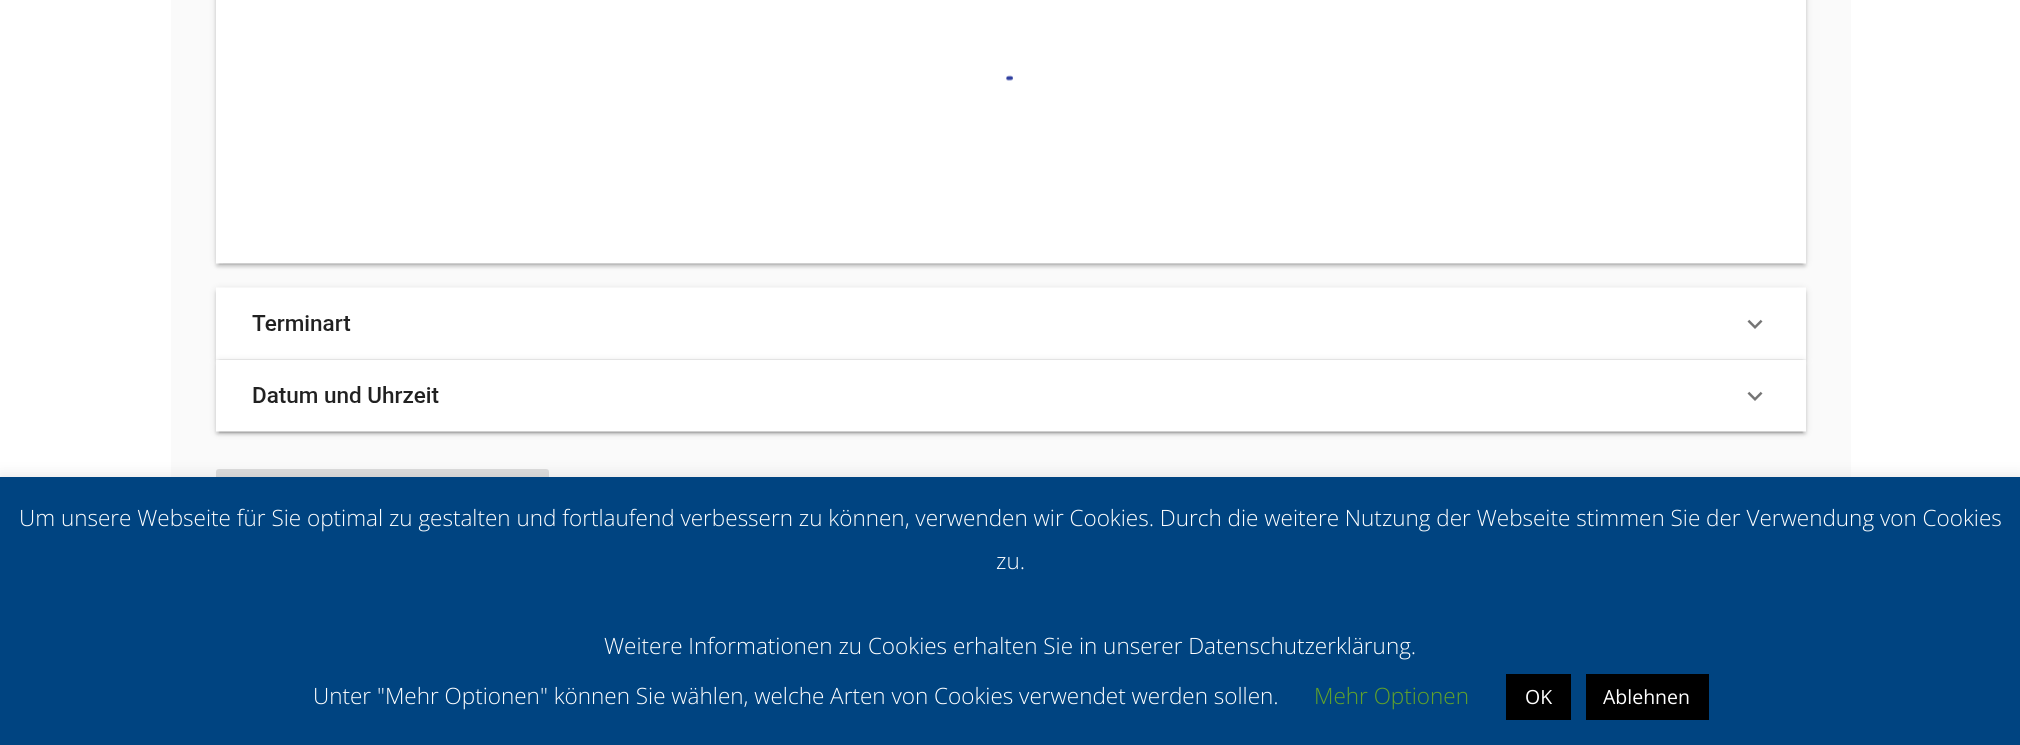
import math
import cairo

surface = cairo.ImageSurface(cairo.FORMAT_RGB24, 2020, 745)
cr = cairo.Context(surface)
options = cairo.FontOptions()
options.set_hint_metrics(cairo.HINT_METRICS_OFF)
options.set_hint_style(cairo.HINT_STYLE_NONE)
cr.set_font_options(options)
cr.set_miter_limit(4)


def rgb(code):
    cr.set_source_rgb(*(v / 255 for v in bytes.fromhex(code[-6:])))


def rrect(x, y, w, h, r):
    cr.new_sub_path()
    for i, (u, v) in enumerate([(x + w - r, y + h - r), (x + r, y + h - r), (x + r, y + r), (x + w - r, y + r)]):
        cr.arc(u, v, r, i * math.pi / 2, (i + 1) * math.pi / 2)
    cr.close_path()


def soft_shadow(x, y, w, h, r, blur, alpha):
    cr.push_group_with_content(cairo.CONTENT_ALPHA)
    cr.set_operator(cairo.OPERATOR_SOURCE)
    for i in range(15, -16, -2):
        e = blur * i / 6
        if min(w, h) + 2 * e > 0:
            cr.set_source_rgba(0, 0, 0, alpha * math.erfc((i - 1) / 8.5) / 2)
            rrect(x - e, y - e, w + 2 * e, h + 2 * e, max(0, min(r + e + blur * .6, min(w, h) / 2 + e)))
            cr.fill()
    cr.mask(cr.pop_group())


def image(path, x, y, w, h):
    cr.save()
    cr.set_source_surface(cairo.ImageSurface.create_from_png(path), x, y)
    cr.rectangle(x, y, w, h)
    cr.fill()
    cr.restore()


rgb("#ffffff")
cr.paint()
image("img/1.png", 171, 0, 1680, 477)
rgb("#acabab")
soft_shadow(0, 476, 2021, 268, 0, 7.5, 0.3)
for x, y, w, h, color in [
    (0, 477, 2020, 268, "#004481"),
    (1506, 674, 65, 46, "#000000"),
    (1586, 674, 123, 46, "#000000"),
]:
    rgb(color)
    cr.rectangle(x, y, w, h)
    cr.fill()
cr.select_font_face("Open Sans Light")
cr.set_font_size(22.5)
rgb("#ffffff")
for x, y, s in [
    (19, 526, "Um unsere Webseite für Sie optimal zu gestalten und fortlaufend verbessern zu können, verwenden wir Cookies. Durch die weitere Nutzung der Webseite stimmen Sie der Verwendung von Cookies"),
    (996, 569, "zu."),
    (604, 654, "Weitere Informationen zu Cookies erhalten Sie in unserer Datenschutzerklärung."),
    (313, 704, "Unter \"Mehr Optionen\" können Sie wählen, welche Arten von Cookies verwendet werden sollen."),
]:
    cr.move_to(x, y)
    cr.show_text(s)
rgb("#62a329")
cr.move_to(1314, 704)
cr.show_text("Mehr Optionen")
cr.select_font_face("Open Sans")
cr.set_font_size(19.5)
rgb("#ffffff")
cr.move_to(1525, 704)
cr.show_text("OK")
cr.move_to(1603, 704)
cr.show_text("Ablehnen")
surface.write_to_png("page.png")
